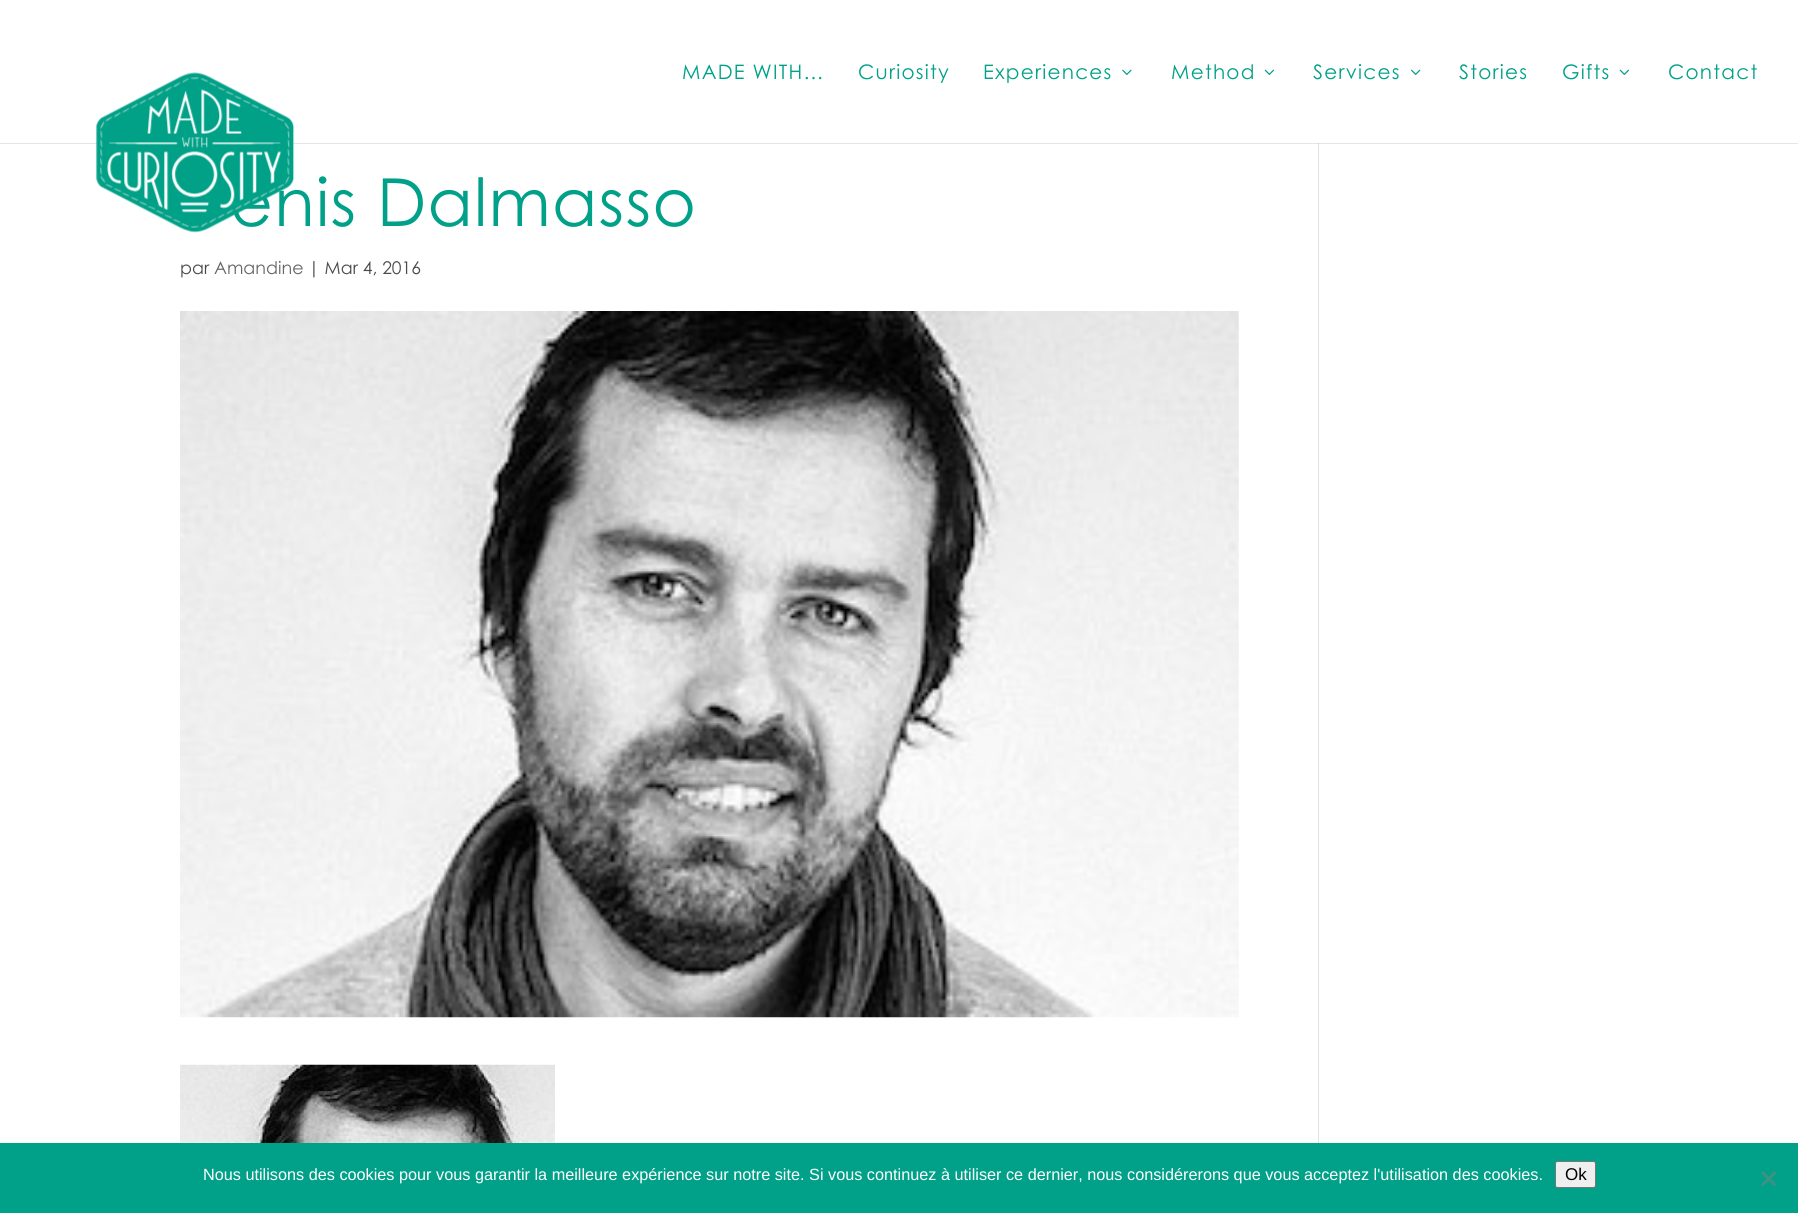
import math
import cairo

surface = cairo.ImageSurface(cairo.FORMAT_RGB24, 1798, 1213)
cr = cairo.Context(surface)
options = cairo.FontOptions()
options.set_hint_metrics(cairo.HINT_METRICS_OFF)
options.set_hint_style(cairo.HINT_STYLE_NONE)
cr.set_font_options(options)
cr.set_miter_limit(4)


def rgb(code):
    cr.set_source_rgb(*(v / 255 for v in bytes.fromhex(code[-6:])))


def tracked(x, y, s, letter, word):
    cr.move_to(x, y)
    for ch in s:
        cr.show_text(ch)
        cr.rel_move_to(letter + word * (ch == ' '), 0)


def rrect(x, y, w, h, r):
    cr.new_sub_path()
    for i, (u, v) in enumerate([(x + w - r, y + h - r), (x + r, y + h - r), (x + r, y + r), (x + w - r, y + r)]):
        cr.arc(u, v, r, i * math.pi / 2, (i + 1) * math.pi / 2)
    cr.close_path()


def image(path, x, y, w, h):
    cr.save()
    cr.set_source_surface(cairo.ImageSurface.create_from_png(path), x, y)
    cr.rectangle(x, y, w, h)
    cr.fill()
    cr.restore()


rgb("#ffffff")
cr.paint()
rgb("#e2e2e2")
cr.rectangle(1318, 143, 1, 1000)
cr.fill()
cr.set_source_rgba(0, 0, 0, 0.1)
cr.new_path()
cr.move_to(0, 142)
cr.line_to(0, 144)
cr.line_to(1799, 144)
cr.line_to(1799, 1)
cr.line_to(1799, 142)
cr.close_path()
cr.fill()
rgb("#ffffff")
cr.rectangle(0, 142, 1798, 1)
cr.fill()
image("img/2.png", 1122, 69, 10, 6)
image("img/3.png", 1264, 69, 10, 6)
image("img/4.png", 1411, 69, 10, 6)
image("img/3.png", 1619, 69, 10, 6)
image("img/5.png", 180, 311, 1059, 707)
image("img/6.png", 180, 1064, 375, 79)
rgb("#00a188")
cr.rectangle(0, 1143, 1798, 70)
cr.fill()
rgb("#efefef")
rrect(1555.5, 1161.5, 40, 26, 2)
cr.fill_preserve()
rgb("#767676")
cr.set_line_width(1)
cr.stroke()
rgb("#409184")
cr.new_path()
cr.move_to(1774.5, 1171)
cr.line_to(1776.5, 1173)
cr.line_to(1763, 1186.5)
cr.line_to(1761, 1184.5)
cr.close_path()
cr.fill()
cr.new_path()
cr.move_to(1761, 1173)
cr.line_to(1763, 1171)
cr.line_to(1776.5, 1184.5)
cr.line_to(1774.5, 1186.5)
cr.close_path()
cr.fill()
cr.select_font_face("Century Gothic")
cr.set_font_size(20)
rgb("#00a188")
for x, y, s in [
    (682, 79, "MADE WITH…"),
    (858, 79, "Curiosity"),
    (983, 79, "Experiences"),
    (1171, 79, "Method"),
    (1313, 79, "Services"),
    (1459, 79, "Stories"),
    (1562, 79, "Gifts"),
    (1668, 79, "Contact"),
]:
    tracked(x, y, s, 1.25, 0)
cr.set_font_size(66.25)
tracked(230, 226, "enis Dalmasso", 1.25, 0)
image("img/1.png", 96, 72, 199, 161)
cr.set_font_size(17.5)
rgb("#4a4a4a")
cr.move_to(180, 274)
cr.show_text("par")
rgb("#666666")
cr.move_to(214, 274)
cr.show_text("Amandine")
rgb("#4a4a4a")
cr.move_to(308, 274)
cr.show_text("| Mar 4, 2016")
cr.select_font_face("Liberation Sans")
cr.set_font_size(16.25)
rgb("#ffffff")
cr.move_to(203, 1180)
cr.show_text("Nous utilisons des cookies pour vous garantir la meilleure expérience sur notre site. Si vous continuez à utiliser ce dernier, nous considérerons que vous acceptez l'utilisation des cookies.")
cr.set_font_size(17)
rgb("#000000")
cr.move_to(1565, 1180)
cr.show_text("Ok")
surface.write_to_png("page.png")
